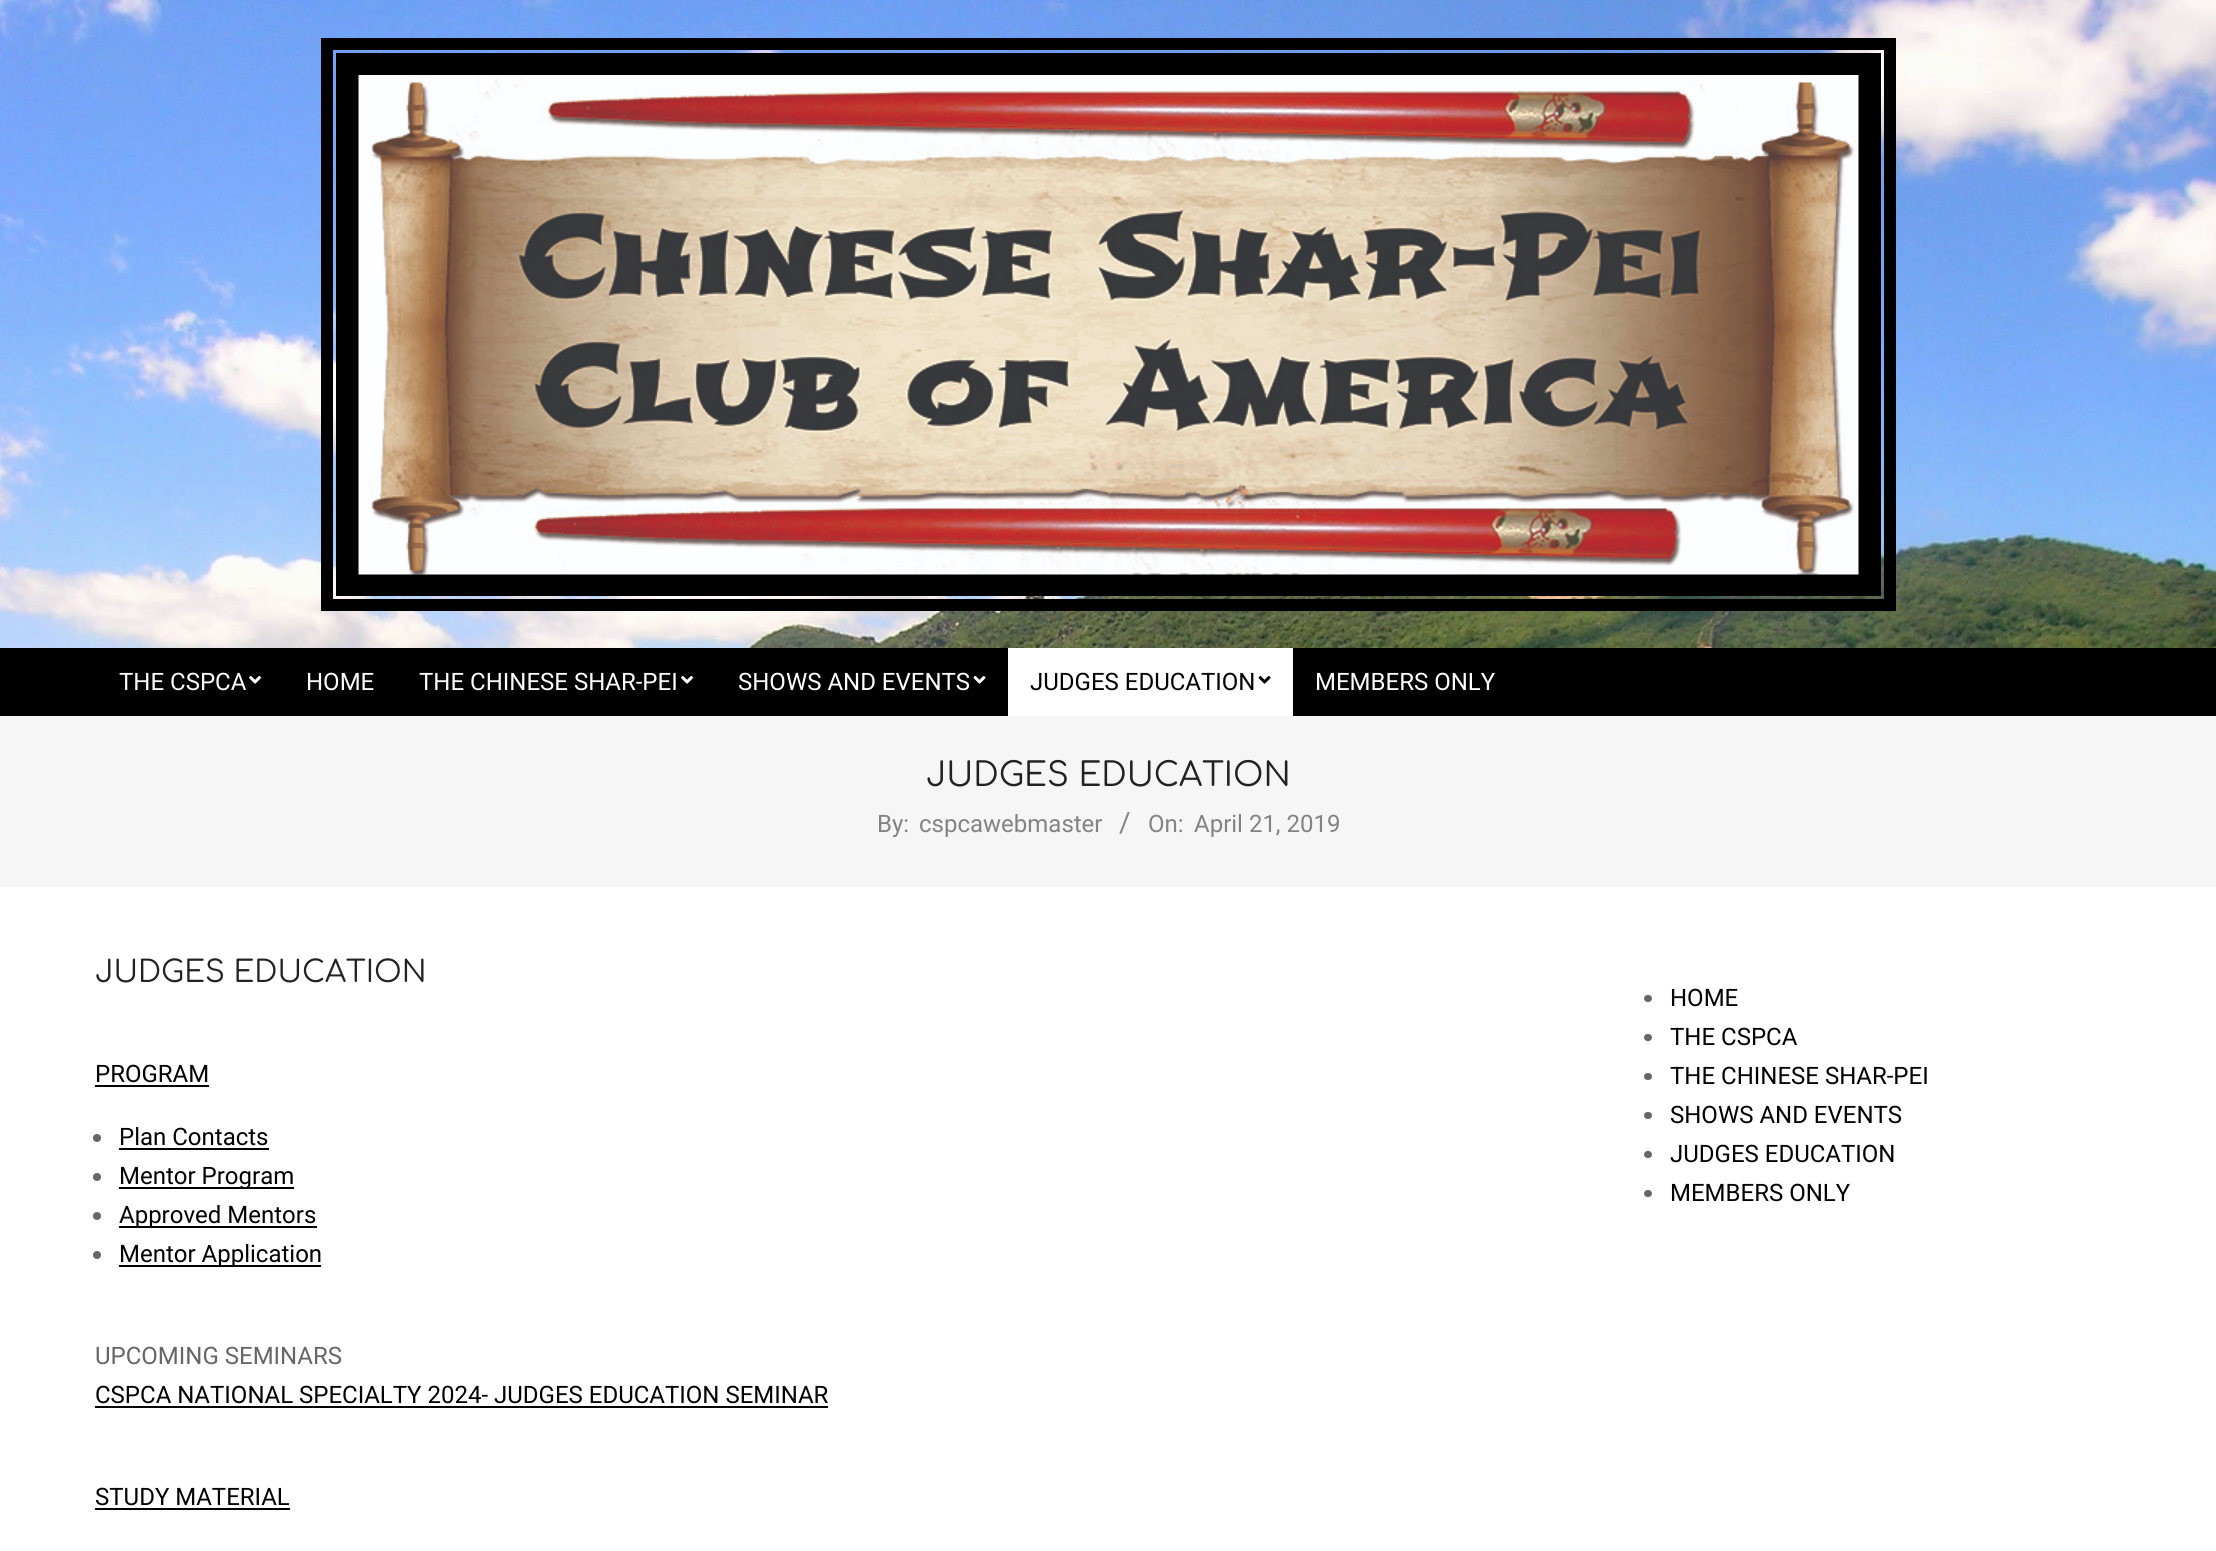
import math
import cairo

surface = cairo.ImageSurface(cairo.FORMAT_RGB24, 2216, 1551)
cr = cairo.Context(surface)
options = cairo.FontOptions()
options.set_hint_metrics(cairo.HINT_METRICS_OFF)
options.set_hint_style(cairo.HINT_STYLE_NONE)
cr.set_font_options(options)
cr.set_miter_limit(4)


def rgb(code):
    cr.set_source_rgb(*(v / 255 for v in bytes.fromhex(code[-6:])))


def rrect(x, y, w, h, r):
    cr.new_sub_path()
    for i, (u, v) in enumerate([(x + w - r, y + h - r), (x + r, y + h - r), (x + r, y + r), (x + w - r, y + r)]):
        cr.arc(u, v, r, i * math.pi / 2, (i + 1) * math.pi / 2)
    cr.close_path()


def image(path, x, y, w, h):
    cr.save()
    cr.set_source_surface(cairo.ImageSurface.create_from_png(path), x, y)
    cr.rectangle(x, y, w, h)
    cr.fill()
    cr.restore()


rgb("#ffffff")
cr.paint()
image("img/1.png", 0, 0, 2216, 648)
cr.rectangle(327, 44, 1563, 561)
rgb("#000000")
cr.set_line_width(12)
cr.stroke()
cr.rectangle(336, 53, 1545, 543)
cr.fill()
image("img/2.png", 358, 75, 1501, 500)
cr.rectangle(0, 648, 2216, 68)
cr.fill()
image("img/3.png", 249, 676, 12, 8)
image("img/3.png", 681, 676, 12, 8)
image("img/4.png", 973, 676, 13, 8)
rgb("#ffffff")
cr.rectangle(1008, 648, 285, 68)
cr.fill()
image("img/5.png", 1258, 676, 13, 8)
rgb("#f6f6f6")
cr.rectangle(0, 716, 2216, 171)
cr.fill()
rgb("#000000")
cr.rectangle(95, 1085, 114, 2)
cr.fill()
rgb("#666666")
cr.arc(97, 1138, 4, 0, 2 * math.pi)
cr.fill()
rgb("#000000")
cr.rectangle(119, 1148, 150, 2)
cr.fill()
rgb("#666666")
cr.arc(97, 1177, 4, 0, 2 * math.pi)
cr.fill()
rgb("#000000")
cr.rectangle(119, 1187, 175, 2)
cr.fill()
rgb("#666666")
cr.arc(97, 1216, 4, 0, 2 * math.pi)
cr.fill()
rgb("#000000")
cr.rectangle(119, 1226, 198, 2)
cr.fill()
rgb("#666666")
cr.arc(97, 1255, 4, 0, 2 * math.pi)
cr.fill()
for x, y, w, h, color in [
    (119, 1265, 202, 2, "#000000"),
    (95, 1406, 733, 2, "#000000"),
    (95, 1508, 195, 2, "#000000"),
]:
    rgb(color)
    cr.rectangle(x, y, w, h)
    cr.fill()
rgb("#666666")
rrect(1644, 995, 8, 7, 3.5)
cr.fill()
rrect(1644, 1034, 8, 7, 3.5)
cr.fill()
rrect(1644, 1073, 8, 7, 3.5)
cr.fill()
rrect(1644, 1112, 8, 7, 3.5)
cr.fill()
rrect(1644, 1151, 8, 7, 3.5)
cr.fill()
rrect(1644, 1190, 8, 7, 3.5)
cr.fill()
cr.select_font_face("Roboto")
cr.set_font_size(24)
rgb("#ffffff")
for x, y, s in [
    (119, 690, "THE CSPCA"),
    (306, 690, "HOME"),
    (419, 690, "THE CHINESE SHAR-PEI"),
    (738, 690, "SHOWS AND EVENTS"),
]:
    cr.move_to(x, y)
    cr.show_text(s)
rgb("#000000")
cr.move_to(1030, 690)
cr.show_text("JUDGES EDUCATION")
rgb("#ffffff")
cr.move_to(1315, 690)
cr.show_text("MEMBERS ONLY")
cr.select_font_face("Comfortaa")
cr.set_font_size(33)
rgb("#222222")
cr.move_to(926, 786)
cr.show_text("JUDGES EDUCATION")
cr.select_font_face("Roboto")
cr.set_font_size(24)
rgb("#838383")
cr.move_to(877, 832)
cr.show_text("By:")
cr.move_to(919, 832)
cr.show_text("cspcawebmaster")
cr.set_font_size(28)
cr.move_to(1119, 832)
cr.show_text("/")
cr.set_font_size(24)
cr.move_to(1148, 832)
cr.show_text("On:")
cr.move_to(1194, 832)
cr.show_text("April 21, 2019")
cr.select_font_face("Comfortaa")
cr.set_font_size(30)
rgb("#222222")
cr.move_to(95, 982)
cr.show_text("JUDGES EDUCATION")
cr.select_font_face("Roboto")
cr.set_font_size(24)
rgb("#000000")
for x, y, s in [
    (95, 1082, "PROGRAM"),
    (119, 1145, "Plan Contacts"),
    (119, 1184, "Mentor Program"),
    (119, 1223, "Approved Mentors"),
    (119, 1262, "Mentor Application"),
]:
    cr.move_to(x, y)
    cr.show_text(s)
rgb("#666666")
cr.move_to(95, 1364)
cr.show_text("UPCOMING SEMINARS")
rgb("#000000")
for x, y, s in [
    (95, 1403, "CSPCA NATIONAL SPECIALTY 2024- JUDGES EDUCATION SEMINAR"),
    (95, 1505, "STUDY MATERIAL"),
    (1670, 1006, "HOME"),
    (1670, 1045, "THE CSPCA"),
    (1670, 1084, "THE CHINESE SHAR-PEI"),
    (1670, 1123, "SHOWS AND EVENTS"),
    (1670, 1162, "JUDGES EDUCATION"),
    (1670, 1201, "MEMBERS ONLY"),
]:
    cr.move_to(x, y)
    cr.show_text(s)
surface.write_to_png("page.png")
